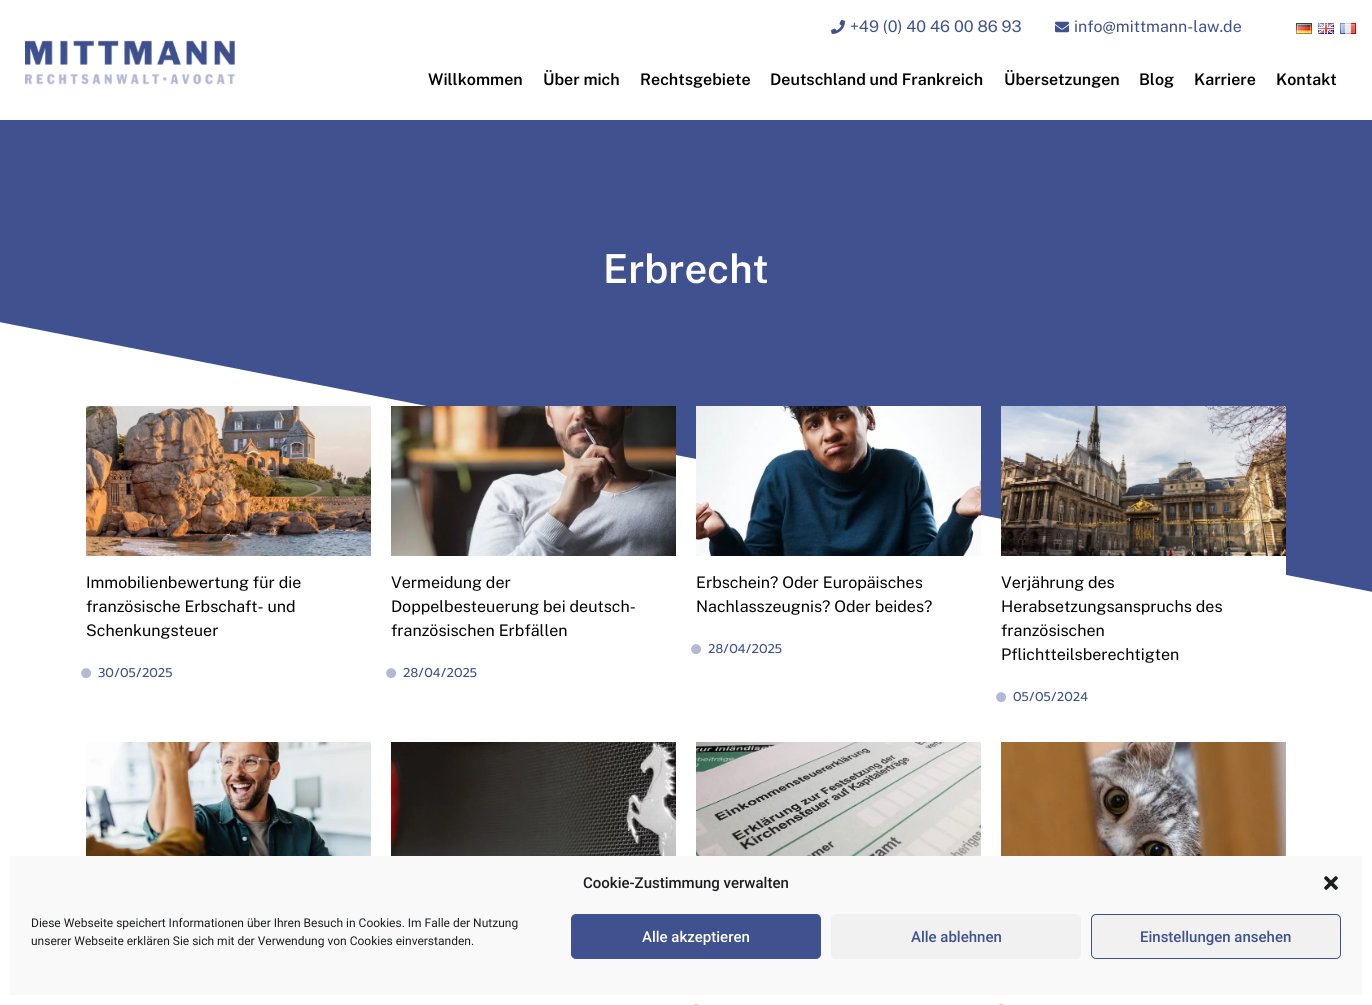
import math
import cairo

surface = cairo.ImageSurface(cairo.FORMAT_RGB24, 1372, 1005)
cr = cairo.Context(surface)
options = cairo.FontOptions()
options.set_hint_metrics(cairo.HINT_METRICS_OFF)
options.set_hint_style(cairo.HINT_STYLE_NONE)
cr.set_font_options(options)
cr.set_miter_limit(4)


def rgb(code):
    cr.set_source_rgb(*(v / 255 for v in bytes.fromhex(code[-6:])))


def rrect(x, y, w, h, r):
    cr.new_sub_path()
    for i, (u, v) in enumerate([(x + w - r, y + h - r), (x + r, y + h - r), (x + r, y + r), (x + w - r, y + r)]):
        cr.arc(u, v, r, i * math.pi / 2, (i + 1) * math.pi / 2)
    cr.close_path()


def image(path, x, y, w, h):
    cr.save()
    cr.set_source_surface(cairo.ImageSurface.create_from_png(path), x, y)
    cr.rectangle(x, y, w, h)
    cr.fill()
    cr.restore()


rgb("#ffffff")
cr.paint()
image("img/1.png", 25, 40, 210, 45)
image("img/2.png", 831, 20, 14, 14)
image("img/3.png", 1055, 21, 14, 12)
image("img/4.png", 1296, 23, 16, 11)
image("img/5.png", 1318, 23, 16, 11)
image("img/6.png", 1340, 23, 16, 11)
rgb("#3f518e")
cr.rectangle(0, 120, 1372, 185)
cr.fill()
cr.new_path()
cr.move_to(-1, 322)
cr.line_to(-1, 305)
cr.line_to(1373, 305)
cr.line_to(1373, 592)
cr.close_path()
cr.fill()
image("img/7.png", 86, 406, 285, 150)
image("img/8.png", 81, 668, 10, 11)
image("img/9.png", 391, 406, 285, 150)
image("img/8.png", 386, 668, 10, 11)
image("img/10.png", 696, 406, 285, 150)
image("img/8.png", 691, 644, 10, 11)
rgb("#ffffff")
cr.rectangle(1190, 556, 96, 19)
cr.fill()
image("img/11.png", 1001, 406, 285, 150)
image("img/8.png", 996, 692, 10, 11)
image("img/12.png", 86, 742, 285, 114)
image("img/13.png", 391, 742, 285, 114)
image("img/14.png", 696, 742, 285, 114)
image("img/15.png", 693, 1004, 6, 1)
image("img/16.png", 1001, 742, 285, 114)
image("img/15.png", 998, 1004, 6, 1)
rgb("#f9f9f9")
cr.rectangle(10, 856, 1352, 139)
cr.fill()
image("img/17.png", 1324, 876, 14, 14)
rgb("#3f518e")
rrect(571.5, 914.5, 249, 44, 4.5)
cr.fill_preserve()
cr.set_line_width(1)
cr.stroke()
rgb("#f1f1f1")
rrect(831, 914, 250, 45, 5)
cr.fill()
rrect(1091.5, 914.5, 249, 44, 4.5)
cr.fill_preserve()
rgb("#3f518e")
cr.stroke()
cr.select_font_face("Public Sans")
cr.set_font_size(16)
cr.move_to(850, 32)
cr.show_text("+49 (0) 40 46 00 86 93")
cr.move_to(1074, 32)
cr.show_text("info@mittmann-law.de")
cr.select_font_face("Public Sans SemiBold")
rgb("#000000")
for x, y, s in [
    (428, 85, "Willkommen"),
    (543, 85, "Über mich"),
    (640, 85, "Rechtsgebiete"),
    (770, 85, "Deutschland und Frankreich"),
    (1004, 85, "Übersetzungen"),
    (1139, 85, "Blog"),
    (1194, 85, "Karriere"),
    (1276, 85, "Kontakt"),
]:
    cr.move_to(x, y)
    cr.show_text(s)
cr.set_font_size(40)
rgb("#ffffff")
cr.move_to(603, 283)
cr.show_text("Erbrecht")
cr.select_font_face("Public Sans")
cr.set_font_size(16)
rgb("#000000")
for x, y, s in [
    (86, 588, "Immobilienbewertung für die"),
    (86, 612, "französische Erbschaft- und"),
    (86, 636, "Schenkungsteuer"),
]:
    cr.move_to(x, y)
    cr.show_text(s)
cr.select_font_face("Prompt")
cr.set_font_size(12.75)
rgb("#3f518e")
cr.move_to(98, 677)
cr.show_text("30/05/2025")
cr.select_font_face("Public Sans")
cr.set_font_size(16)
rgb("#000000")
for x, y, s in [
    (391, 588, "Vermeidung der"),
    (391, 612, "Doppelbesteuerung bei deutsch-"),
    (391, 636, "französischen Erbfällen"),
]:
    cr.move_to(x, y)
    cr.show_text(s)
cr.select_font_face("Prompt")
cr.set_font_size(12.75)
rgb("#3f518e")
cr.move_to(403, 677)
cr.show_text("28/04/2025")
cr.select_font_face("Public Sans")
cr.set_font_size(16)
rgb("#000000")
cr.move_to(696, 588)
cr.show_text("Erbschein? Oder Europäisches")
cr.move_to(696, 612)
cr.show_text("Nachlasszeugnis? Oder beides?")
cr.select_font_face("Prompt")
cr.set_font_size(12.75)
rgb("#3f518e")
cr.move_to(708, 653)
cr.show_text("28/04/2025")
cr.select_font_face("Public Sans")
cr.set_font_size(16)
rgb("#000000")
for x, y, s in [
    (1001, 588, "Verjährung des"),
    (1001, 612, "Herabsetzungsanspruchs des"),
    (1001, 636, "französischen"),
    (1001, 660, "Pflichtteilsberechtigten"),
]:
    cr.move_to(x, y)
    cr.show_text(s)
cr.select_font_face("Prompt")
cr.set_font_size(12.75)
rgb("#3f518e")
cr.move_to(1013, 701)
cr.show_text("05/05/2024")
cr.select_font_face("Roboto Medium")
cr.set_font_size(15)
rgb("#191e23")
cr.move_to(583, 888)
cr.show_text("Cookie-Zustimmung verwalten")
cr.select_font_face("Roboto")
cr.set_font_size(12)
cr.move_to(31, 927)
cr.show_text("Diese Webseite speichert Informationen über Ihren Besuch in Cookies. Im Falle der Nutzung")
cr.move_to(31, 945)
cr.show_text("unserer Webseite erklären Sie sich mit der Verwendung von Cookies einverstanden.")
cr.select_font_face("Roboto Medium")
cr.set_font_size(15)
rgb("#ffffff")
cr.move_to(642, 942)
cr.show_text("Alle akzeptieren")
rgb("#3f518e")
cr.move_to(911, 942)
cr.show_text("Alle ablehnen")
cr.move_to(1140, 942)
cr.show_text("Einstellungen ansehen")
surface.write_to_png("page.png")
